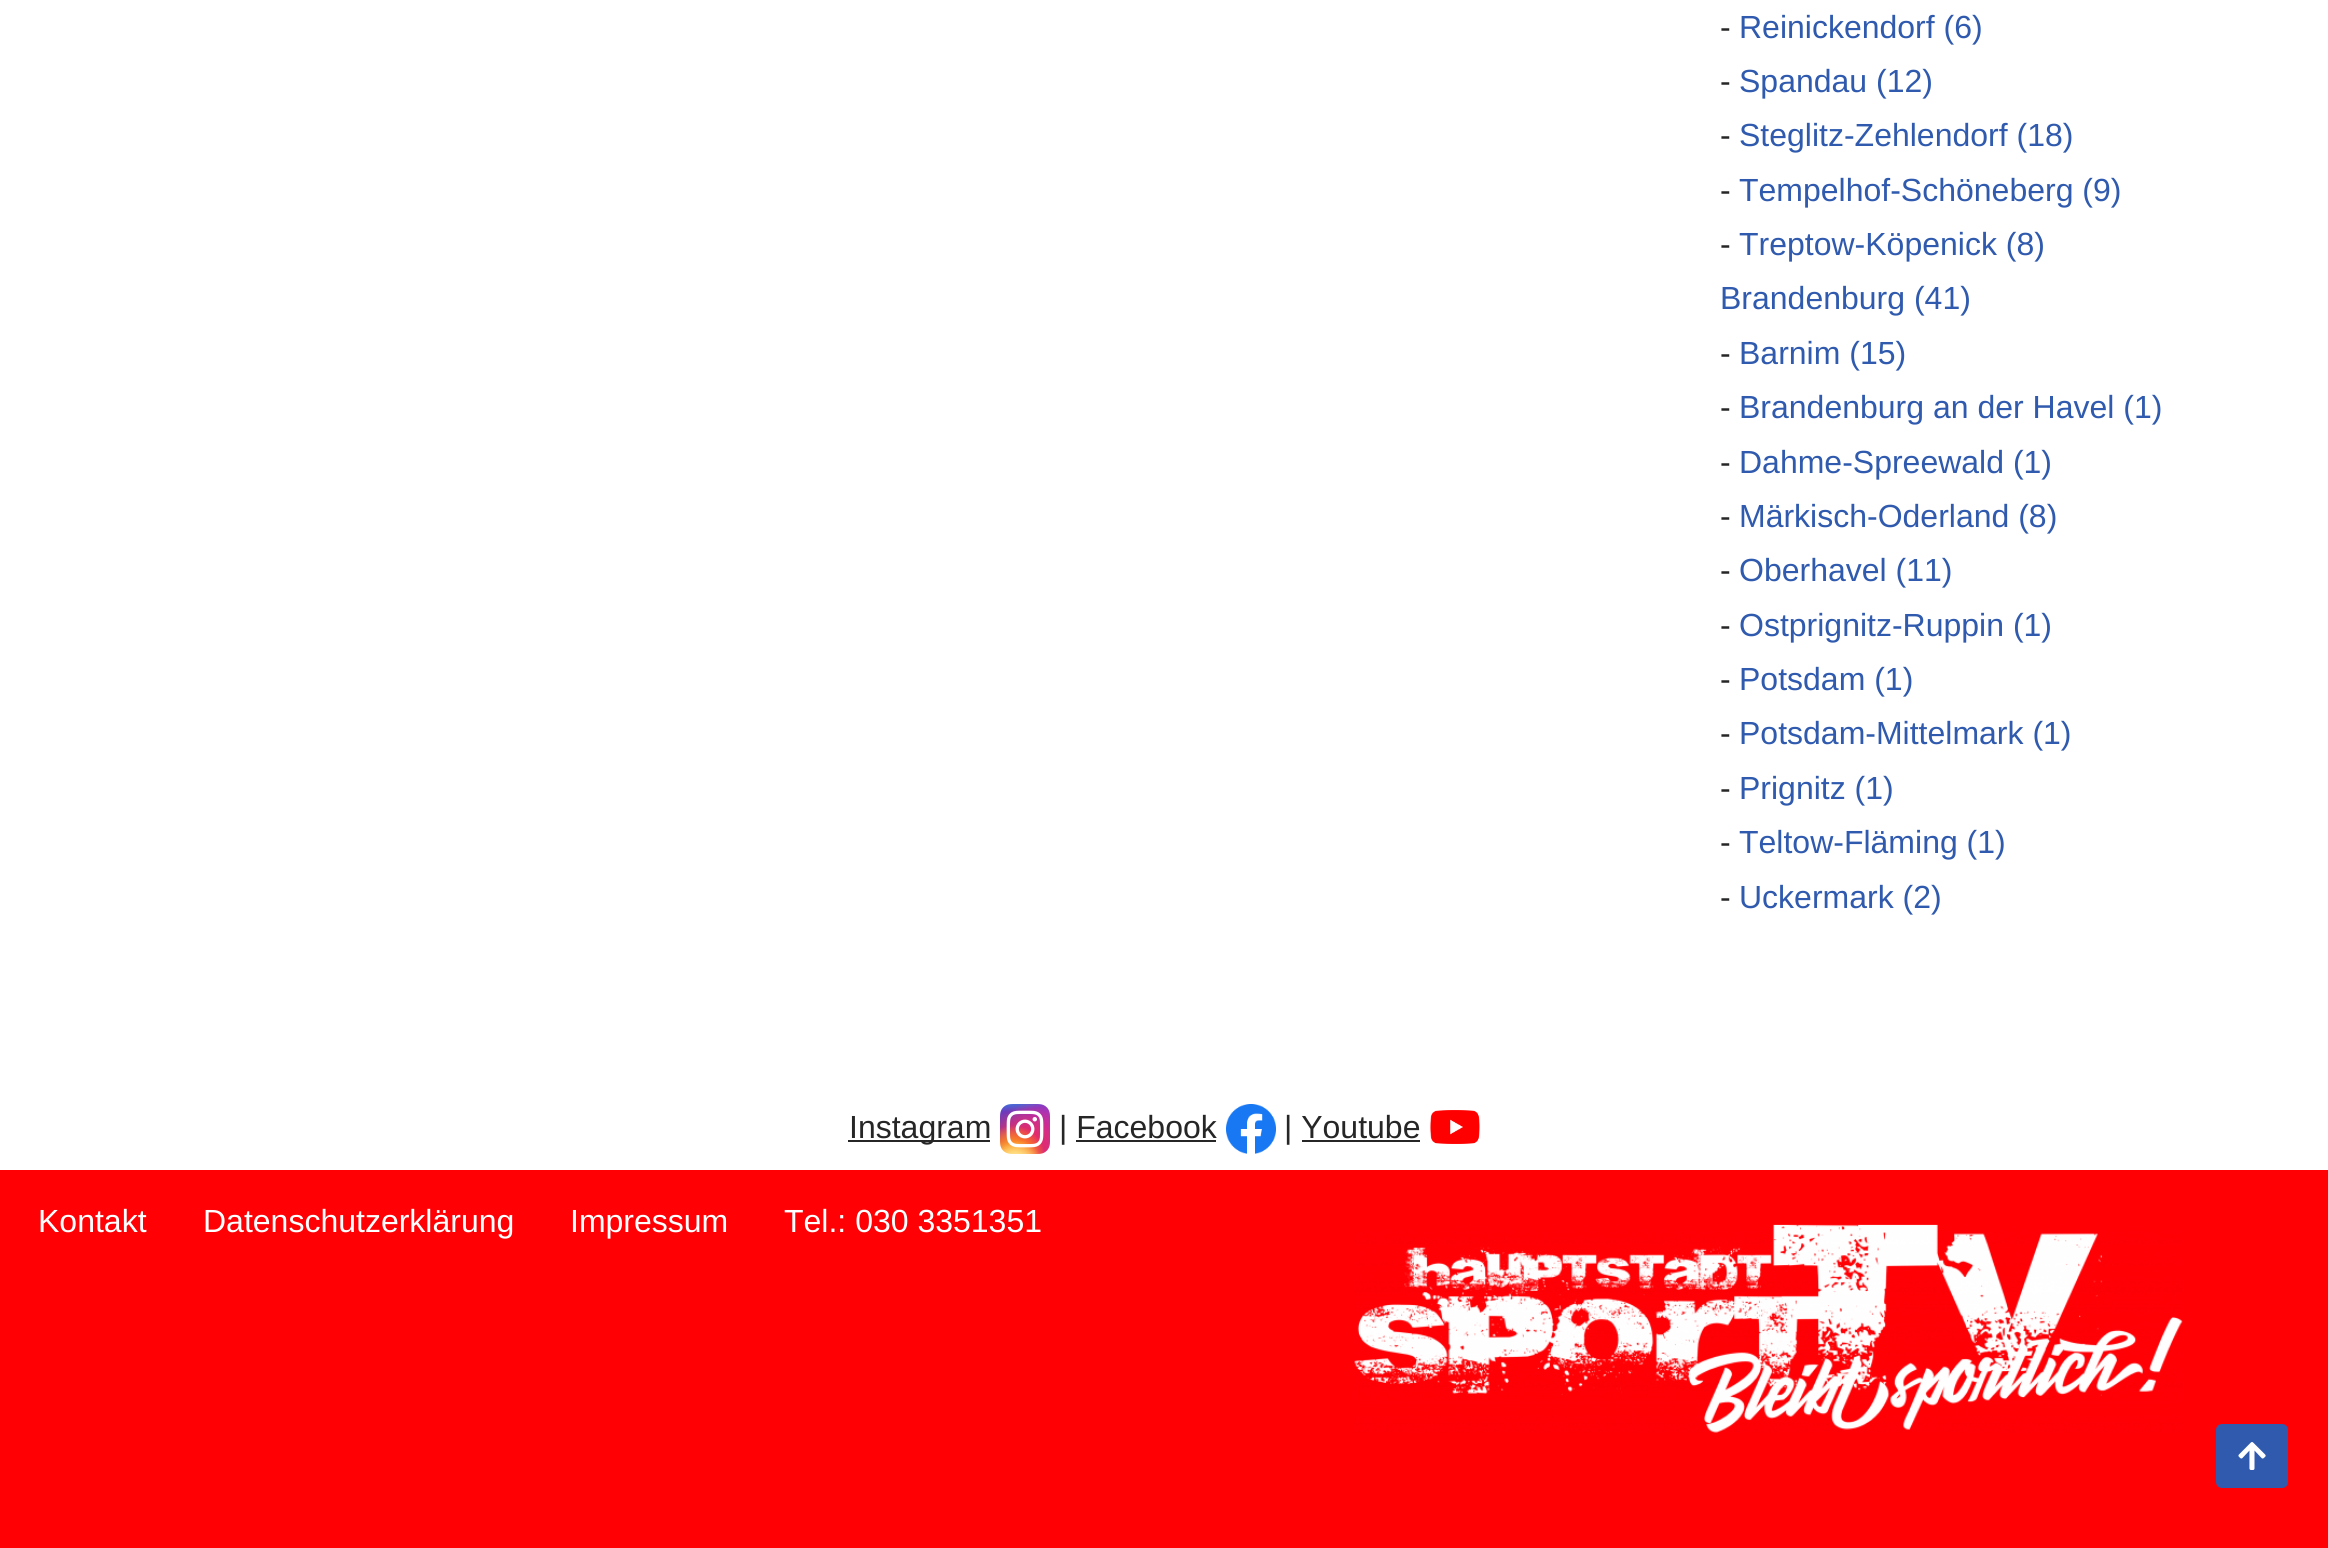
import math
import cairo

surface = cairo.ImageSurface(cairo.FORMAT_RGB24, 2328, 1548)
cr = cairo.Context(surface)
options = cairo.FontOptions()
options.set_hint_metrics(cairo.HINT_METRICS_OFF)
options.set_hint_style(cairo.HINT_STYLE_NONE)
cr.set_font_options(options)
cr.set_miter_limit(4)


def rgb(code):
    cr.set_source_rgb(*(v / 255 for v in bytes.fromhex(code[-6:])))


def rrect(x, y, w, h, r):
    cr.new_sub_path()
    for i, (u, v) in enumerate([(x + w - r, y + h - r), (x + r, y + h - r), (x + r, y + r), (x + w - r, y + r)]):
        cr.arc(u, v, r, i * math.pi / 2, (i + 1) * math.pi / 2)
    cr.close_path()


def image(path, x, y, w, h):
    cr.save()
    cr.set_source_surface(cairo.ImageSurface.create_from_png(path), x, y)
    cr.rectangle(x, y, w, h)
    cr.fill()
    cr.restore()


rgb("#ffffff")
cr.paint()
rgb("#272626")
cr.rectangle(848, 1140, 142, 2)
cr.fill()
image("img/1.png", 1000, 1104, 50, 50)
image("img/2.png", 1226, 1104, 50, 50)
image("img/3.png", 1430, 1110, 50, 34)
for x, y, w, h, color in [
    (1076, 1140, 140, 2, "#272626"),
    (1302, 1140, 118, 2, "#272626"),
    (0, 1170, 2328, 378, "#ff0005"),
]:
    rgb(color)
    cr.rectangle(x, y, w, h)
    cr.fill()
image("img/4.png", 1354, 1224, 829, 209)
rgb("#2f5aae")
rrect(2216, 1424, 72, 64, 6)
cr.fill()
image("img/5.png", 2238, 1442, 28, 28)
cr.select_font_face("Liberation Sans")
cr.set_font_size(32)
rgb("#272626")
cr.move_to(1720, 38)
cr.show_text("-")
rgb("#2f5aae")
cr.move_to(1739, 38)
cr.show_text("Reinickendorf (6)")
rgb("#272626")
cr.move_to(1720, 92)
cr.show_text("-")
rgb("#2f5aae")
cr.move_to(1739, 92)
cr.show_text("Spandau (12)")
rgb("#272626")
cr.move_to(1720, 146)
cr.show_text("-")
rgb("#2f5aae")
cr.move_to(1739, 146)
cr.show_text("Steglitz-Zehlendorf (18)")
rgb("#272626")
cr.move_to(1720, 201)
cr.show_text("-")
rgb("#2f5aae")
cr.move_to(1739, 201)
cr.show_text("Tempelhof-Schöneberg (9)")
rgb("#272626")
cr.move_to(1720, 255)
cr.show_text("-")
rgb("#2f5aae")
cr.move_to(1739, 255)
cr.show_text("Treptow-Köpenick (8)")
cr.move_to(1720, 309)
cr.show_text("Brandenburg (41)")
rgb("#272626")
cr.move_to(1720, 364)
cr.show_text("-")
rgb("#2f5aae")
cr.move_to(1739, 364)
cr.show_text("Barnim (15)")
rgb("#272626")
cr.move_to(1720, 418)
cr.show_text("-")
rgb("#2f5aae")
cr.move_to(1739, 418)
cr.show_text("Brandenburg an der Havel (1)")
rgb("#272626")
cr.move_to(1720, 473)
cr.show_text("-")
rgb("#2f5aae")
cr.move_to(1739, 473)
cr.show_text("Dahme-Spreewald (1)")
rgb("#272626")
cr.move_to(1720, 527)
cr.show_text("-")
rgb("#2f5aae")
cr.move_to(1739, 527)
cr.show_text("Märkisch-Oderland (8)")
rgb("#272626")
cr.move_to(1720, 581)
cr.show_text("-")
rgb("#2f5aae")
cr.move_to(1739, 581)
cr.show_text("Oberhavel (11)")
rgb("#272626")
cr.move_to(1720, 636)
cr.show_text("-")
rgb("#2f5aae")
cr.move_to(1739, 636)
cr.show_text("Ostprignitz-Ruppin (1)")
rgb("#272626")
cr.move_to(1720, 690)
cr.show_text("-")
rgb("#2f5aae")
cr.move_to(1739, 690)
cr.show_text("Potsdam (1)")
rgb("#272626")
cr.move_to(1720, 744)
cr.show_text("-")
rgb("#2f5aae")
cr.move_to(1739, 744)
cr.show_text("Potsdam-Mittelmark (1)")
rgb("#272626")
cr.move_to(1720, 799)
cr.show_text("-")
rgb("#2f5aae")
cr.move_to(1739, 799)
cr.show_text("Prignitz (1)")
rgb("#272626")
cr.move_to(1720, 853)
cr.show_text("-")
rgb("#2f5aae")
cr.move_to(1739, 853)
cr.show_text("Teltow-Fläming (1)")
rgb("#272626")
cr.move_to(1720, 908)
cr.show_text("-")
rgb("#2f5aae")
cr.move_to(1739, 908)
cr.show_text("Uckermark (2)")
rgb("#272626")
for x, y, s in [
    (849, 1138, "Instagram"),
    (1059, 1138, "| Facebook"),
    (1284, 1138, "| Youtube"),
]:
    cr.move_to(x, y)
    cr.show_text(s)
rgb("#ffffff")
for x, y, s in [
    (38, 1232, "Kontakt"),
    (203, 1232, "Datenschutzerklärung"),
    (570, 1232, "Impressum"),
    (784, 1232, "Tel.: 030 3351351"),
]:
    cr.move_to(x, y)
    cr.show_text(s)
surface.write_to_png("page.png")
